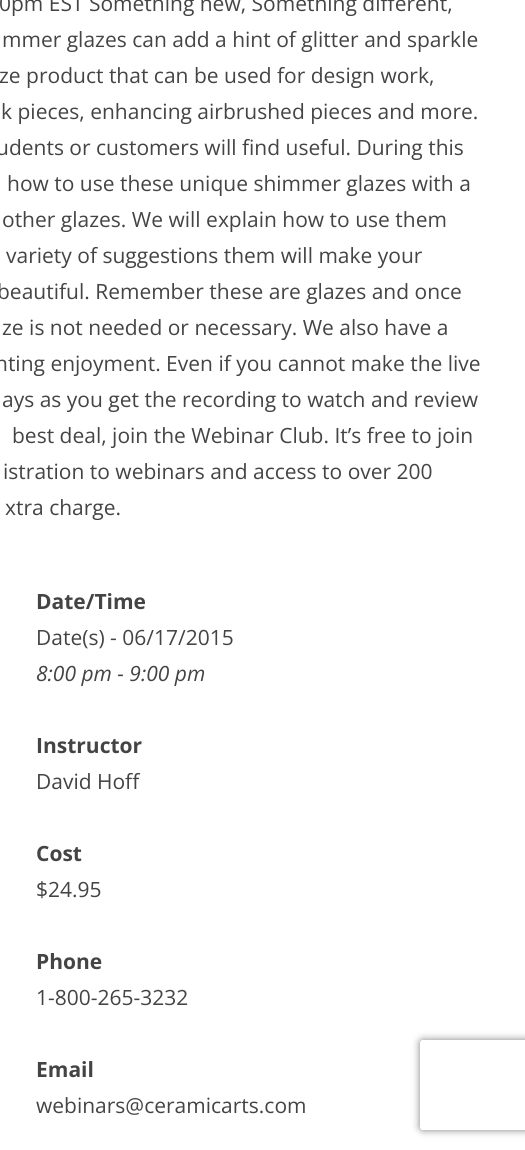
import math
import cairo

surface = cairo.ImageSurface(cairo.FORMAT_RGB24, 525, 1150)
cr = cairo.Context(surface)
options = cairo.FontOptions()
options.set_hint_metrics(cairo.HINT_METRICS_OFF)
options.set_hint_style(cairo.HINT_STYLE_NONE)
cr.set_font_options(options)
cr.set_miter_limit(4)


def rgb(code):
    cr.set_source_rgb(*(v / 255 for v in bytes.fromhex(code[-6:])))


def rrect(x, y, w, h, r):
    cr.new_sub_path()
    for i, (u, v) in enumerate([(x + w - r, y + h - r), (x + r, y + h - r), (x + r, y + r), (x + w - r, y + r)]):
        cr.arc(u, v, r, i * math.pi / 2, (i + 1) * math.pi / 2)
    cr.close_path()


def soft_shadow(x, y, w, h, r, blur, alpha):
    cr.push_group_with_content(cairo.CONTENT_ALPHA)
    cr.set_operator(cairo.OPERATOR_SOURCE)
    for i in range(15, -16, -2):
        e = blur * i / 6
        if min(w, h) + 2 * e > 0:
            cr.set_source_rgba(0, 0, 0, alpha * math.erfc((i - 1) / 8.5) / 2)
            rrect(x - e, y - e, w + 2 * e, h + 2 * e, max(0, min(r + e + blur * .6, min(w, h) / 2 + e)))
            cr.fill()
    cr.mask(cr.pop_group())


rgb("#ffffff")
cr.paint()
cr.save()
cr.set_fill_rule(cairo.FILL_RULE_EVEN_ODD)
cr.new_path()
cr.move_to(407, 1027)
cr.line_to(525, 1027)
cr.line_to(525, 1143)
cr.line_to(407, 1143)
cr.close_path()
cr.move_to(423, 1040)
cr.line_to(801, 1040)
cr.curve_to(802.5, 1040, 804, 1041.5, 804, 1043)
cr.line_to(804, 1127)
cr.curve_to(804, 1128.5, 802.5, 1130, 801, 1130)
cr.line_to(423, 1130)
cr.curve_to(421.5, 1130, 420, 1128.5, 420, 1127)
cr.line_to(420, 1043)
cr.curve_to(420, 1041.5, 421.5, 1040, 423, 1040)
cr.close_path()
cr.clip()
rgb("#808080")
soft_shadow(420, 1040, 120, 90, 3, 4, 1)
cr.restore()
cr.select_font_face("Open Sans")
cr.set_font_size(21)
rgb("#444444")
for x, y, s in [
    (-1, 11, "0pm EST Something new, Something different,"),
    (2, 47, "mmer glazes can add a hint of glitter and sparkle"),
    (-1, 83, "ze product that can be used for design work,"),
    (1, 119, "k pieces, enhancing airbrushed pieces and more."),
    (-4, 155, "udents or customers will find useful. During this"),
    (7, 191, "how to use these unique shimmer glazes with a"),
    (2, 227, "other glazes. We will explain how to use them"),
    (6, 263, "variety of suggestions them will make your"),
    (-3, 299, "beautiful. Remember these are glazes and once"),
    (2, 335, "ze is not needed or necessary. We also have a"),
    (-5, 371, "nting enjoyment. Even if you cannot make the live"),
    (2, 407, "ays as you get the recording to watch and review"),
    (12, 443, "best deal, join the Webinar Club. It’s free to join"),
    (3, 479, "istration to webinars and access to over 200"),
    (5, 515, "xtra charge."),
]:
    cr.move_to(x, y)
    cr.show_text(s)
cr.select_font_face("Open Sans", cairo.FONT_SLANT_NORMAL, cairo.FONT_WEIGHT_BOLD)
cr.move_to(36, 609)
cr.show_text("Date/Time")
cr.select_font_face("Open Sans")
cr.move_to(36, 645)
cr.show_text("Date(s) - 06/17/2015")
cr.select_font_face("Open Sans", cairo.FONT_SLANT_ITALIC)
cr.move_to(36, 681)
cr.show_text("8:00 pm - 9:00 pm")
cr.select_font_face("Open Sans", cairo.FONT_SLANT_NORMAL, cairo.FONT_WEIGHT_BOLD)
cr.move_to(36, 753)
cr.show_text("Instructor")
cr.select_font_face("Open Sans")
cr.move_to(36, 789)
cr.show_text("David Hoff")
cr.select_font_face("Open Sans", cairo.FONT_SLANT_NORMAL, cairo.FONT_WEIGHT_BOLD)
cr.move_to(36, 861)
cr.show_text("Cost")
cr.select_font_face("Open Sans")
cr.move_to(36, 897)
cr.show_text("$24.95")
cr.select_font_face("Open Sans", cairo.FONT_SLANT_NORMAL, cairo.FONT_WEIGHT_BOLD)
cr.move_to(36, 969)
cr.show_text("Phone")
cr.select_font_face("Open Sans")
cr.move_to(36, 1005)
cr.show_text("1-800-265-3232")
cr.select_font_face("Open Sans", cairo.FONT_SLANT_NORMAL, cairo.FONT_WEIGHT_BOLD)
cr.move_to(36, 1077)
cr.show_text("Email")
cr.select_font_face("Open Sans")
cr.move_to(36, 1113)
cr.show_text("webinars@ceramicarts.com")
surface.write_to_png("page.png")
